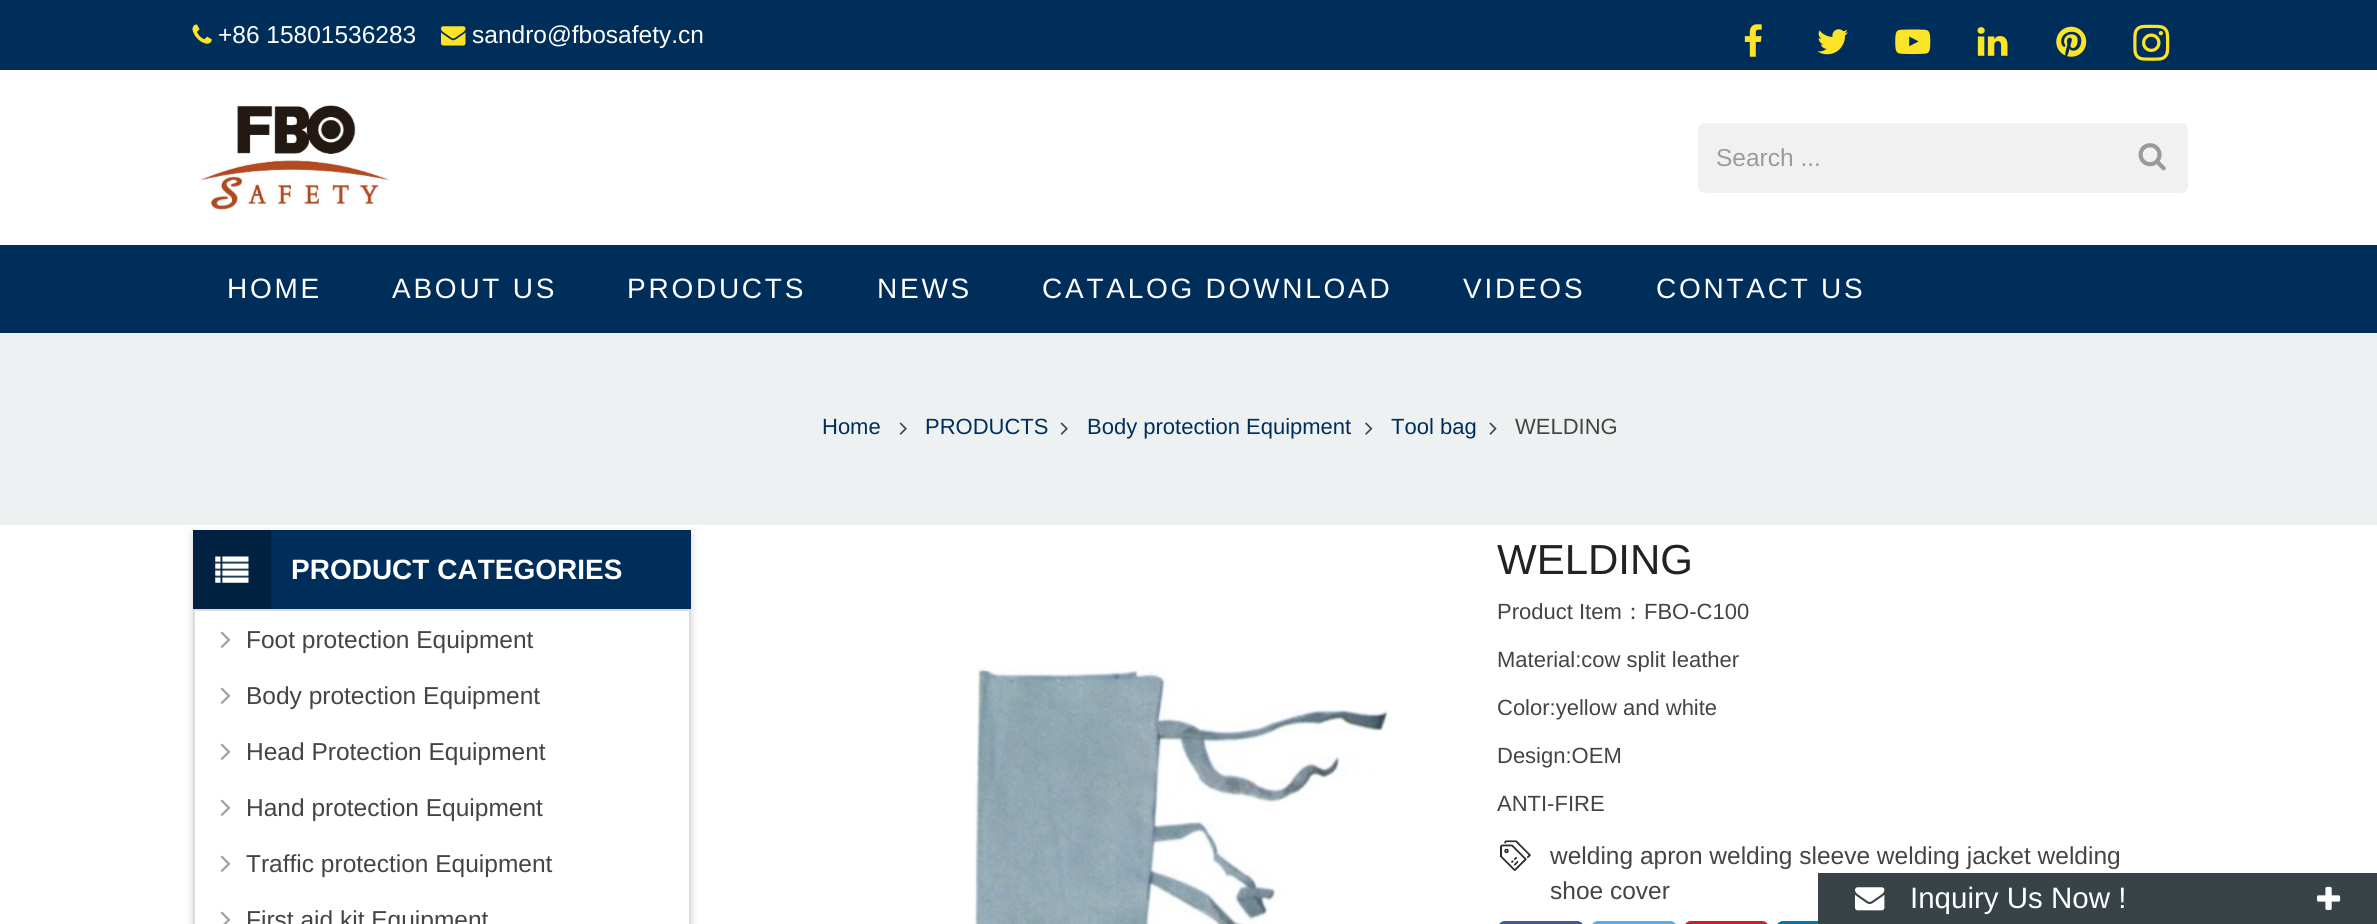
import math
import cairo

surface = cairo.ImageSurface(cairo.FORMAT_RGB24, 2377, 924)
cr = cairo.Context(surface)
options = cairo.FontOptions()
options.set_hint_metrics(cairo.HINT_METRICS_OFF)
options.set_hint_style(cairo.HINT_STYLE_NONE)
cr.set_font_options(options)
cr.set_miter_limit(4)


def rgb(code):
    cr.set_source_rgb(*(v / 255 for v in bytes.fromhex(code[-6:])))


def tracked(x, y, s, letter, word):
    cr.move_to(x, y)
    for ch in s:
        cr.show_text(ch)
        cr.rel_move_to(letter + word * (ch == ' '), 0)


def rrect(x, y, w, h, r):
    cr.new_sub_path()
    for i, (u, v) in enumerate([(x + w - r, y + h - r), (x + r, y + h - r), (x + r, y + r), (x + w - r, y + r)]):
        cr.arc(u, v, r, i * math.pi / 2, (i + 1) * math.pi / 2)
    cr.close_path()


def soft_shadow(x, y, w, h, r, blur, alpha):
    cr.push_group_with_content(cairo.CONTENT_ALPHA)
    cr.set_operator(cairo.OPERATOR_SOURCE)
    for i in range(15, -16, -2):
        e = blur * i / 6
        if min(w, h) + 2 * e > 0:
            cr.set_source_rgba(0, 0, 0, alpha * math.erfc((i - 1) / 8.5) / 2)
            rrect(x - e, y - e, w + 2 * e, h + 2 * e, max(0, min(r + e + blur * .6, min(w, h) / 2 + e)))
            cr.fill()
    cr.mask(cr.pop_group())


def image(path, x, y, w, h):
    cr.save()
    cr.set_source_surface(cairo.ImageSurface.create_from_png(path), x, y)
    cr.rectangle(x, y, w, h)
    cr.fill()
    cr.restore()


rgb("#ffffff")
cr.paint()
rgb("#002e5b")
cr.rectangle(0, 0, 2377, 70)
cr.fill()
image("img/1.png", 192, 24, 20, 20)
image("img/2.png", 441, 26, 25, 20)
image("img/3.png", 1744, 24, 18, 33)
image("img/4.png", 1817, 29, 31, 26)
image("img/5.png", 1895, 29, 36, 26)
image("img/6.png", 1977, 27, 31, 29)
image("img/7.png", 2056, 26, 31, 31)
image("img/8.png", 2133, 24, 37, 37)
image("img/9.png", 200, 105, 191, 105)
rgb("#f1f1f1")
rrect(1698, 123, 490, 70, 7)
cr.fill()
image("img/10.png", 2138, 143, 28, 28)
rgb("#002e5b")
cr.rectangle(0, 245, 2377, 88)
cr.fill()
cr.save()
cr.set_fill_rule(cairo.FILL_RULE_EVEN_ODD)
cr.new_path()
cr.move_to(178, 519)
cr.line_to(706, 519)
cr.line_to(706, 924)
cr.line_to(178, 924)
cr.close_path()
cr.move_to(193, 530)
cr.line_to(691, 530)
cr.line_to(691, 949)
cr.line_to(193, 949)
cr.close_path()
cr.clip()
rgb("#000000")
soft_shadow(193, 534, 498, 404, 0, 4.5, 0.18)
cr.restore()
rgb("#edf1f2")
cr.rectangle(0, 333, 2377, 192)
cr.fill()
image("img/11.png", 899, 422, 8, 13)
image("img/11.png", 1060, 422, 8, 13)
image("img/12.png", 1365, 422, 8, 13)
image("img/13.png", 1489, 422, 8, 13)
rgb("#002e5b")
cr.rectangle(271, 530, 420, 79)
cr.fill()
rgb("#00213f")
cr.rectangle(193, 530, 78, 79)
cr.fill()
image("img/14.png", 215, 556, 34, 27)
cr.rectangle(194, 610, 496, 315)
rgb("#dddddd")
cr.stroke()
image("img/15.png", 220, 631, 11, 17)
image("img/15.png", 220, 687, 11, 17)
image("img/15.png", 220, 743, 11, 17)
image("img/15.png", 220, 799, 11, 17)
image("img/15.png", 220, 855, 11, 17)
image("img/16.png", 220, 911, 11, 13)
image("img/17.png", 973, 665, 419, 259)
image("img/18.png", 1499, 840, 32, 31)
rrect(1500, 923, 82, 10, 5)
rgb("#42599e")
cr.set_line_width(4)
cr.stroke()
rrect(1593, 923, 82, 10, 5)
rgb("#55acee")
cr.stroke()
rrect(1686, 923, 81, 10, 5)
rgb("#cb2027")
cr.stroke()
rrect(1778, 923, 82, 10, 5)
rgb("#0077b5")
cr.stroke()
rgb("#384347")
cr.rectangle(1818, 873, 559, 51)
cr.fill()
image("img/19.png", 1855, 887, 30, 24)
image("img/20.png", 2317, 886, 24, 24)
cr.select_font_face("Liberation Sans")
cr.set_font_size(24.5)
rgb("#ffffff")
cr.move_to(218, 43)
cr.show_text("+86 15801536283")
cr.move_to(472, 43)
cr.show_text("sandro@fbosafety.cn")
rgb("#9b9b9b")
cr.move_to(1716, 166)
cr.show_text("Search ...")
cr.set_font_size(28)
rgb("#ffffff")
for x, y, s in [
    (227, 298, "HOME"),
    (392, 298, "ABOUT US"),
    (627, 298, "PRODUCTS"),
    (877, 298, "NEWS"),
    (1042, 298, "CATALOG DOWNLOAD"),
    (1463, 298, "VIDEOS"),
    (1656, 298, "CONTACT US"),
]:
    tracked(x, y, s, 2.75, 0)
cr.set_font_size(22)
rgb("#002e5b")
for x, y, s in [
    (822, 434, "Home"),
    (925, 434, "PRODUCTS"),
    (1087, 434, "Body protection Equipment"),
    (1391, 434, "Tool bag"),
]:
    cr.move_to(x, y)
    cr.show_text(s)
rgb("#444444")
cr.move_to(1515, 434)
cr.show_text("WELDING")
cr.select_font_face("Liberation Sans", cairo.FONT_SLANT_NORMAL, cairo.FONT_WEIGHT_BOLD)
cr.set_font_size(28)
rgb("#ffffff")
cr.move_to(291, 579)
cr.show_text("PRODUCT CATEGORIES")
cr.select_font_face("Liberation Sans")
cr.set_font_size(24.5)
rgb("#444444")
for x, y, s in [
    (246, 648, "Foot protection Equipment"),
    (246, 704, "Body protection Equipment"),
    (246, 760, "Head Protection Equipment"),
    (246, 816, "Hand protection Equipment"),
    (246, 872, "Traffic protection Equipment"),
    (246, 928, "First aid kit Equipment"),
]:
    cr.move_to(x, y)
    cr.show_text(s)
cr.set_font_size(42)
rgb("#222222")
cr.move_to(1497, 574)
cr.show_text("WELDING")
cr.set_font_size(22)
rgb("#444444")
cr.move_to(1497, 619)
cr.show_text("Product Item")
cr.select_font_face("WenQuanYi Zen Hei Medium")
cr.move_to(1622, 619)
cr.show_text("：")
cr.select_font_face("Liberation Sans")
for x, y, s in [
    (1644, 619, "FBO-C100"),
    (1497, 667, "Material:cow split leather"),
    (1497, 715, "Color:yellow and white"),
    (1497, 763, "Design:OEM"),
    (1497, 811, "ANTI-FIRE"),
]:
    cr.move_to(x, y)
    cr.show_text(s)
cr.set_font_size(24.5)
cr.move_to(1550, 864)
cr.show_text("welding apron welding sleeve welding jacket welding")
cr.move_to(1550, 899)
cr.show_text("shoe cover")
cr.set_font_size(29.5)
rgb("#ffffff")
cr.move_to(1910, 908)
cr.show_text("Inquiry Us Now !")
surface.write_to_png("page.png")
